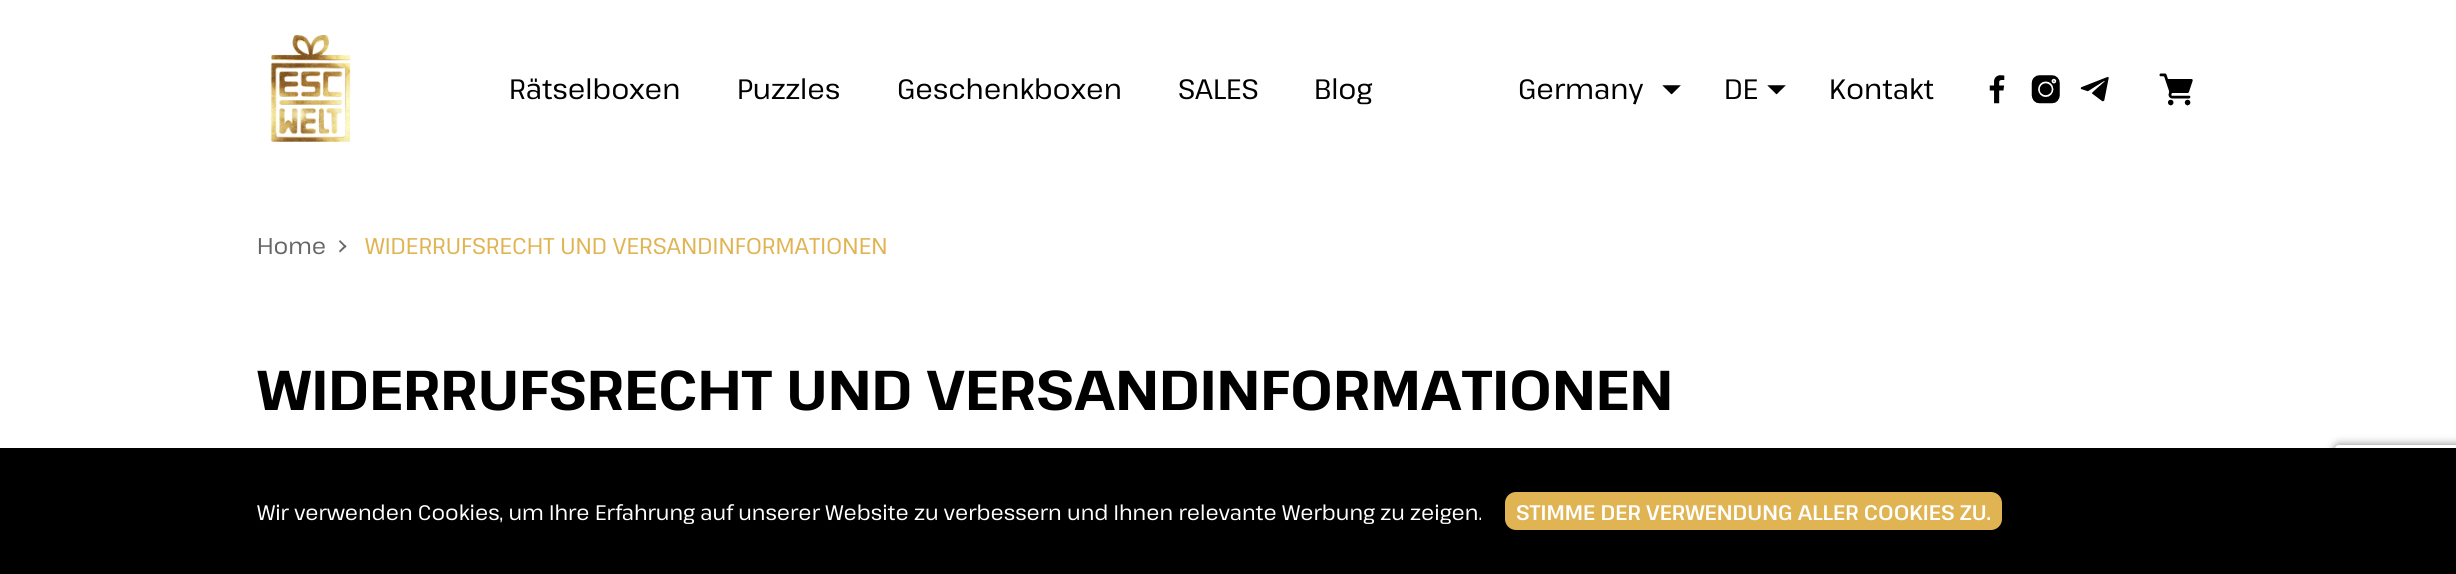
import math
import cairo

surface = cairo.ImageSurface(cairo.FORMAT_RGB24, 2456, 574)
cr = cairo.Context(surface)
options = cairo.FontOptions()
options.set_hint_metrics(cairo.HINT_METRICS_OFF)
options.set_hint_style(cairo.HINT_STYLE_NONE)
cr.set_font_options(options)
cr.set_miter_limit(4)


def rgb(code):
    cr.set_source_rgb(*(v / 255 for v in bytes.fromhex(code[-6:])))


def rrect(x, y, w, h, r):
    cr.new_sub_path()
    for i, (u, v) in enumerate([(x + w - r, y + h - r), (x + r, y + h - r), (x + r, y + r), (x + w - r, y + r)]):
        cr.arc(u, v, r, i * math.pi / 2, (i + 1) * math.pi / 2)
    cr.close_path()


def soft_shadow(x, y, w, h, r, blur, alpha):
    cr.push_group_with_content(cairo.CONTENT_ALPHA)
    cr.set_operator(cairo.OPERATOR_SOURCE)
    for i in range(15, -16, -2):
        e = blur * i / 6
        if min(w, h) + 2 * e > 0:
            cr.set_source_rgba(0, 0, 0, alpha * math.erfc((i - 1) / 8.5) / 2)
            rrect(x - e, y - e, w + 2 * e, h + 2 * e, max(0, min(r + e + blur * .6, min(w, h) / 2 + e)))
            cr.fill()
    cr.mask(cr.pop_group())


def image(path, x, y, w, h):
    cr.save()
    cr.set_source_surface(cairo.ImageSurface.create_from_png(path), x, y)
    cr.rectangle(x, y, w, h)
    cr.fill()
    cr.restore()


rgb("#ffffff")
cr.paint()
image("img/1.png", 270, 35, 81, 107)
image("img/2.png", 1662, 85, 19, 10)
image("img/3.png", 1767, 85, 19, 10)
image("img/4.png", 1989, 75, 16, 29)
image("img/5.png", 2031, 75, 29, 29)
image("img/6.png", 2080, 77, 29, 25)
image("img/7.png", 2159, 73, 34, 33)
rgb("#666666")
cr.new_path()
cr.move_to(339, 241.5)
cr.line_to(340, 240)
cr.line_to(346.5, 246.5)
cr.line_to(345, 247.5)
cr.close_path()
cr.fill()
cr.new_path()
cr.move_to(339, 251)
cr.line_to(345, 245)
cr.line_to(346.5, 246.5)
cr.line_to(340, 252.5)
cr.close_path()
cr.fill()
cr.save()
cr.set_fill_rule(cairo.FILL_RULE_EVEN_ODD)
cr.new_path()
cr.move_to(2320, 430)
cr.line_to(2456, 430)
cr.line_to(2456, 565)
cr.line_to(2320, 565)
cr.close_path()
cr.move_to(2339, 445)
cr.line_to(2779, 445)
cr.curve_to(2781, 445, 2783, 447, 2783, 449)
cr.line_to(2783, 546)
cr.curve_to(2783, 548, 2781, 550, 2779, 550)
cr.line_to(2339, 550)
cr.curve_to(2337, 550, 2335, 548, 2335, 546)
cr.line_to(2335, 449)
cr.curve_to(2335, 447, 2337, 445, 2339, 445)
cr.close_path()
cr.clip()
rgb("#808080")
soft_shadow(2335, 445, 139, 105, 4, 4.5, 1)
cr.restore()
rgb("#000000")
cr.rectangle(0, 448, 2456, 126)
cr.fill()
rgb("#e0b453")
rrect(1506, 493, 495, 36, 10)
cr.fill_preserve()
cr.stroke()
cr.select_font_face("Pathway Extreme")
cr.set_font_size(28)
rgb("#000000")
for x, y, s in [
    (509, 99, "Rätselboxen"),
    (737, 99, "Puzzles"),
    (897, 99, "Geschenkboxen"),
    (1178, 99, "SALES"),
    (1314, 99, "Blog"),
    (1518, 99, "Germany"),
    (1724, 99, "DE"),
    (1829, 99, "Kontakt"),
]:
    cr.move_to(x, y)
    cr.show_text(s)
cr.set_font_size(22.75)
rgb("#666666")
cr.move_to(257, 254)
cr.show_text("Home")
rgb("#e0b453")
cr.move_to(365, 254)
cr.show_text("WIDERRUFSRECHT UND VERSANDINFORMATIONEN")
cr.select_font_face("Pathway Extreme", cairo.FONT_SLANT_NORMAL, cairo.FONT_WEIGHT_BOLD)
cr.set_font_size(56)
rgb("#000000")
cr.move_to(257, 410)
cr.show_text("WIDERRUFSRECHT UND VERSANDINFORMATIONEN")
cr.select_font_face("Pathway Extreme")
cr.set_font_size(21)
rgb("#ffffff")
cr.move_to(257, 520)
cr.show_text("Wir verwenden Cookies, um Ihre Erfahrung auf unserer Website zu verbessern und Ihnen relevante Werbung zu zeigen.")
cr.select_font_face("Pathway Extreme SemiBold")
cr.move_to(1516, 520)
cr.show_text("STIMME DER VERWENDUNG ALLER COOKIES ZU.")
surface.write_to_png("page.png")
